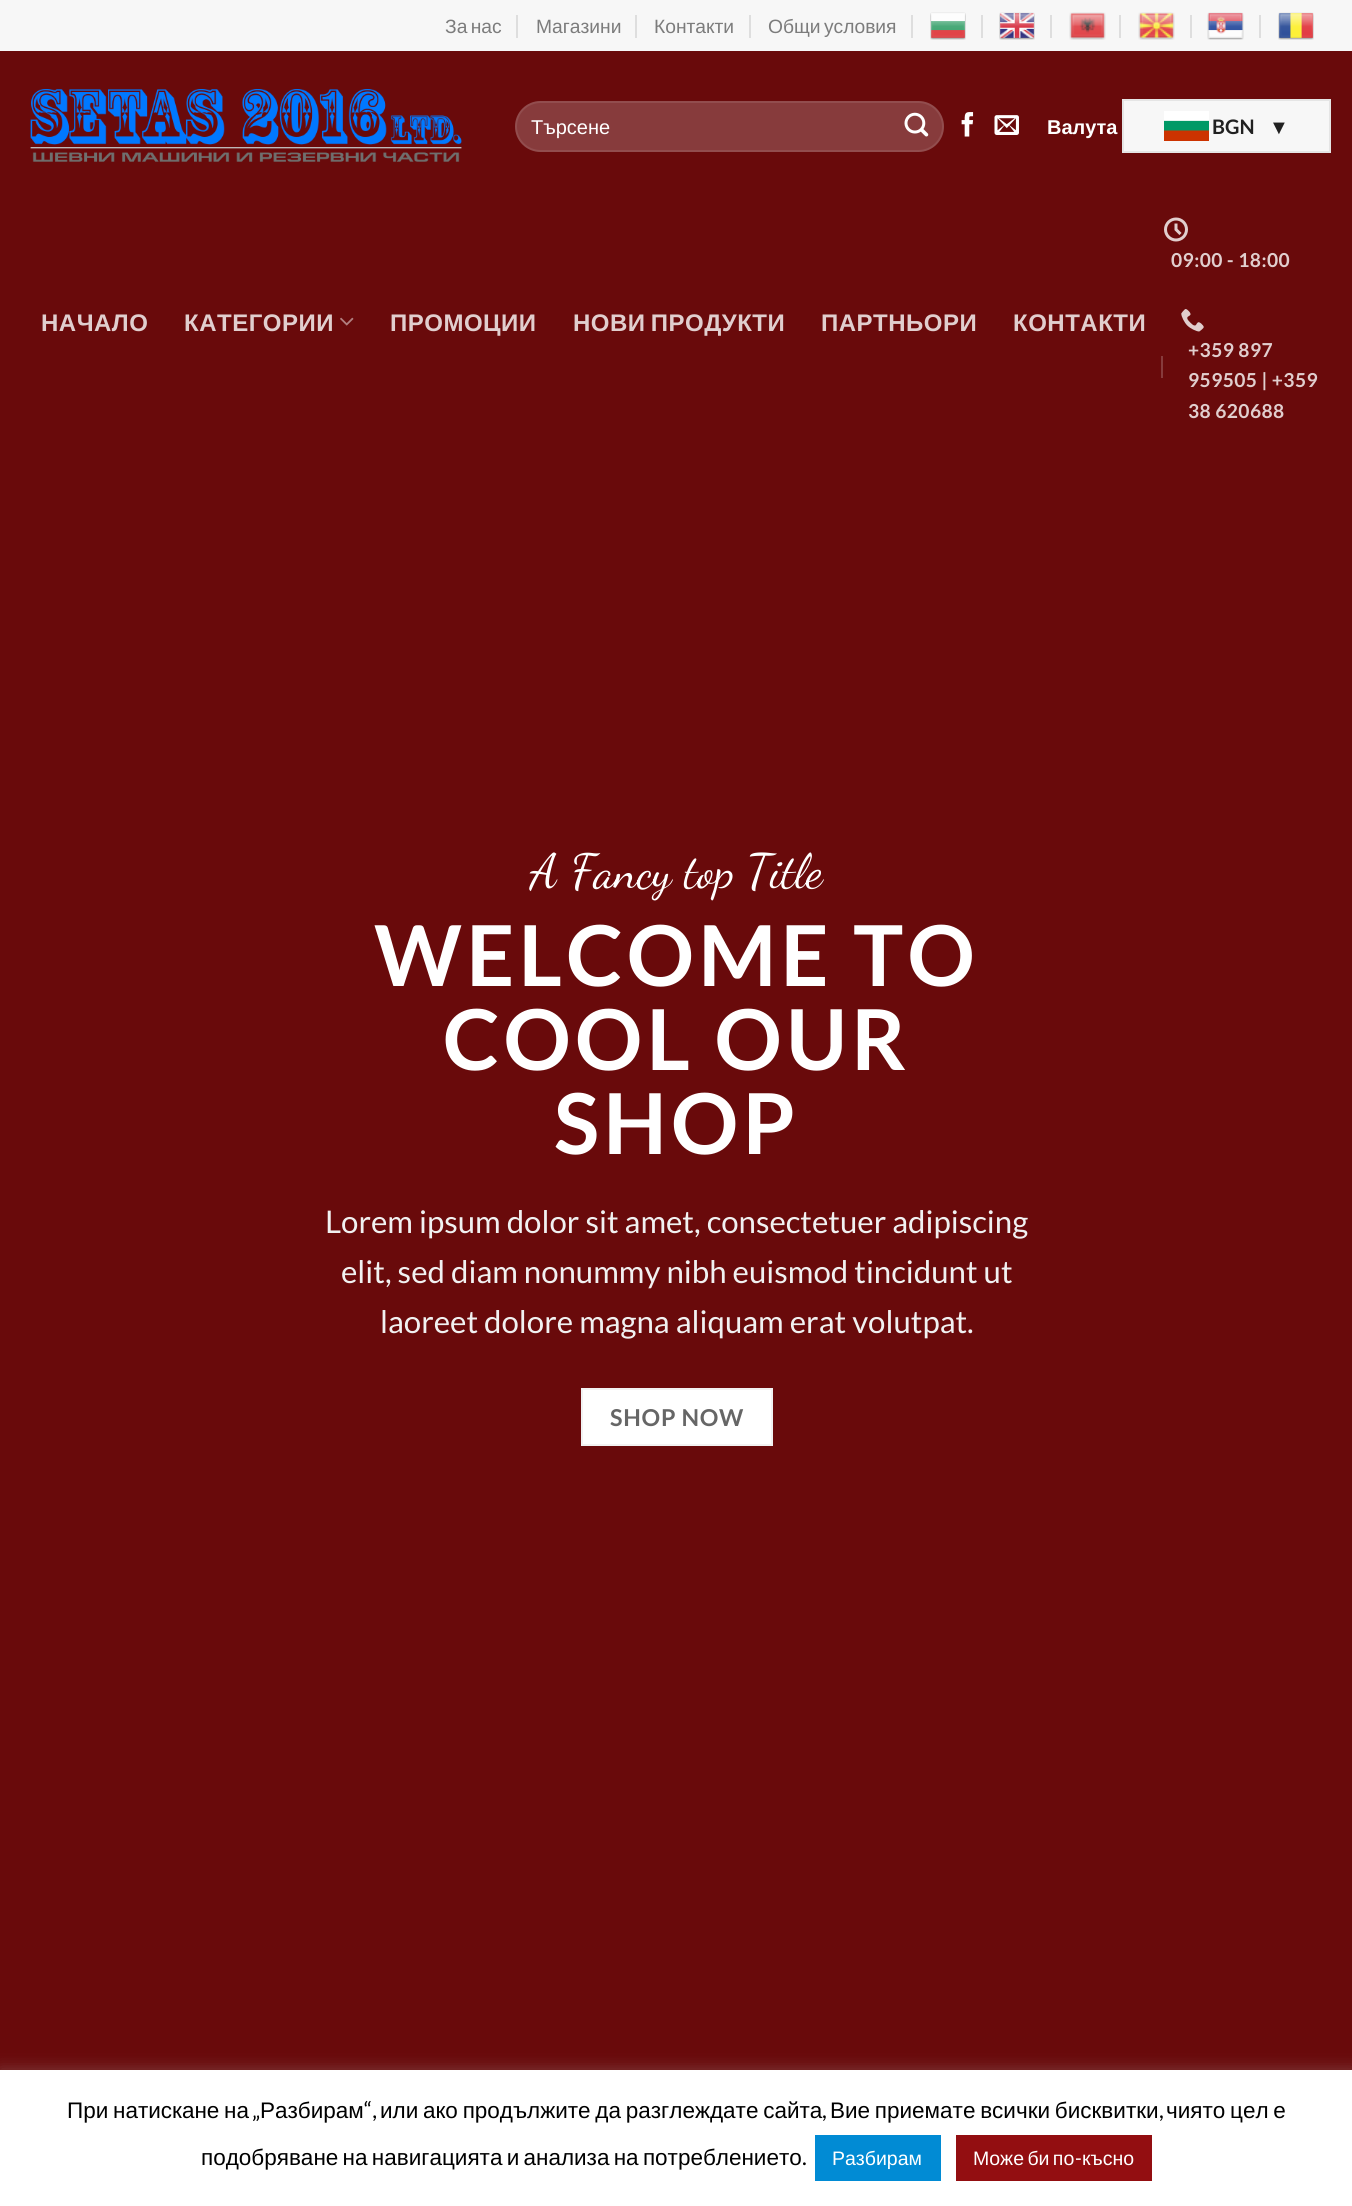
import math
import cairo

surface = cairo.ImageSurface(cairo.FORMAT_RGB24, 1352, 2206)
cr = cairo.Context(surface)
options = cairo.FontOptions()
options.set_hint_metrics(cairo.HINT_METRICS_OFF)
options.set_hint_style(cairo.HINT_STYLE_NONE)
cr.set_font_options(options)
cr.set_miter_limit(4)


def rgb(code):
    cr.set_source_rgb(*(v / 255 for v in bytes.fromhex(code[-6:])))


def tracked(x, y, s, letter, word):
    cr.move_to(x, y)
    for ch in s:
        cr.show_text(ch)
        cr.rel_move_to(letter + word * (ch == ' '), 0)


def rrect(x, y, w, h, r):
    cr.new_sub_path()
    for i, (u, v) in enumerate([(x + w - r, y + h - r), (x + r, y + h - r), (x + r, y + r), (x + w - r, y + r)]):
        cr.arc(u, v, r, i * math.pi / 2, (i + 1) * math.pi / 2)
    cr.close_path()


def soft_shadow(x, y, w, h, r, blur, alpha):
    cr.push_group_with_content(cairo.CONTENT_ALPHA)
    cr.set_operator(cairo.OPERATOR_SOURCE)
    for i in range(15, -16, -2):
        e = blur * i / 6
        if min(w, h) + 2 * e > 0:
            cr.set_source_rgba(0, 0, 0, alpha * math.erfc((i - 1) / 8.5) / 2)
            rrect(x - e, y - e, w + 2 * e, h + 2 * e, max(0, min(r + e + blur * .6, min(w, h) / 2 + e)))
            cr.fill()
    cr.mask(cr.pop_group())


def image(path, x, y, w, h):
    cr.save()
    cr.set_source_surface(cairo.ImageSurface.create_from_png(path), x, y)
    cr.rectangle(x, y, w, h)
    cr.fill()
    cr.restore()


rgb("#690a0b")
cr.paint()
for x, y, w, h, color in [
    (0, 0, 1352, 51, "#f7f7f7"),
    (516, 15, 2, 23, "#dedede"),
    (635, 15, 2, 23, "#dedede"),
    (749, 15, 2, 23, "#dedede"),
    (911, 15, 2, 23, "#dedede"),
]:
    rgb(color)
    cr.rectangle(x, y, w, h)
    cr.fill()
image("img/1.png", 930, 12, 36, 28)
cr.rectangle(981, 15, 2, 23)
cr.fill()
image("img/2.png", 999, 12, 36, 28)
cr.rectangle(1050, 15, 2, 23)
cr.fill()
image("img/3.png", 1069, 12, 37, 28)
cr.rectangle(1119, 15, 2, 23)
cr.fill()
image("img/4.png", 1138, 12, 37, 28)
cr.rectangle(1190, 15, 2, 23)
cr.fill()
image("img/5.png", 1207, 12, 37, 28)
cr.rectangle(1259, 15, 2, 23)
cr.fill()
image("img/6.png", 1278, 12, 36, 28)
image("img/7.png", 30, 89, 432, 73)
rgb("#873b3c")
rrect(515, 101, 429, 51, 25.5)
cr.fill()
rrect(516, 102, 427, 49, 24.5)
cr.set_source_rgba(1, 1, 1, 0.09)
cr.stroke()
image("img/8.png", 904, 112, 25, 25)
image("img/9.png", 961, 112, 13, 25)
image("img/10.png", 994, 115, 25, 20)
rgb("#f7f7f7")
cr.rectangle(1123, 100, 207, 52)
cr.fill_preserve()
rgb("#e5e5e5")
cr.stroke()
image("img/11.png", 1164, 111, 45, 30)
image("img/12.png", 340, 317, 14, 9)
image("img/13.png", 1164, 217, 24, 25)
image("img/14.png", 1181, 309, 23, 23)
rgb("#873b3c")
cr.rectangle(1161, 356, 2, 22)
cr.fill()
rgb("#ffffff")
cr.rectangle(582, 1389, 190, 56)
cr.fill_preserve()
rgb("#f2f2f2")
cr.stroke()
rgb("#acabab")
soft_shadow(0, 2069, 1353, 136, 0, 7.5, 0.3)
for x, y, w, h, color in [
    (0, 2070, 1352, 136, "#ffffff"),
    (815, 2135, 126, 46, "#018bd4"),
    (956, 2135, 196, 46, "#930e11"),
]:
    rgb(color)
    cr.rectangle(x, y, w, h)
    cr.fill()
cr.select_font_face("Liberation Sans")
cr.set_font_size(19.25)
rgb("#7c7c7c")
tracked(445, 33, "За нас", 0, -2)
cr.move_to(536, 33)
cr.show_text("Магазини")
cr.move_to(654, 33)
cr.show_text("Контакти")
tracked(768, 33, "Общи условия", 0, -2)
cr.set_font_size(20)
rgb("#ffffff")
cr.move_to(531, 134)
cr.show_text("Търсене")
cr.select_font_face("Liberation Sans", cairo.FONT_SLANT_NORMAL, cairo.FONT_WEIGHT_BOLD)
cr.move_to(1047, 134)
cr.show_text("Валута")
cr.select_font_face("Lato", cairo.FONT_SLANT_NORMAL, cairo.FONT_WEIGHT_BOLD)
rgb("#212121")
cr.move_to(1212, 134)
cr.show_text("BGN")
cr.select_font_face("Liberation Sans", cairo.FONT_SLANT_NORMAL, cairo.FONT_WEIGHT_BOLD)
cr.move_to(1269, 134)
cr.show_text("▼")
cr.set_font_size(24)
rgb("#e1cece")
for x, y, s in [
    (41, 331, "НАЧАЛО"),
    (184, 331, "КАТЕГОРИИ"),
    (390, 331, "ПРОМОЦИИ"),
]:
    tracked(x, y, s, 0.5, 0)
tracked(573, 331, "НОВИ ПРОДУКТИ", 0.5, -2)
tracked(821, 331, "ПАРТНЬОРИ", 0.5, 0)
tracked(1013, 331, "КОНТАКТИ", 0.5, 0)
cr.select_font_face("Lato", cairo.FONT_SLANT_NORMAL, cairo.FONT_WEIGHT_BOLD)
cr.set_font_size(19.25)
for x, y, s in [
    (1171, 267, "09:00 - 18:00"),
    (1188, 357, "+359 897"),
    (1188, 387, "959505 | +359"),
    (1188, 418, "38 620688"),
]:
    tracked(x, y, s, 0.4, 0)
cr.select_font_face("Dancing Script")
cr.set_font_size(48)
rgb("#ffffff")
cr.move_to(530, 887)
cr.show_text("A Fancy top Title")
cr.select_font_face("Lato", cairo.FONT_SLANT_NORMAL, cairo.FONT_WEIGHT_BOLD)
cr.set_font_size(84)
for x, y, s in [
    (374, 986, "WELCOME TO"),
    (443, 1070, "COOL OUR"),
    (554, 1154, "SHOP"),
]:
    tracked(x, y, s, 4.25, 0)
cr.select_font_face("Lato")
cr.set_font_size(31.2)
rgb("#f1f1f1")
for x, y, s in [
    (325, 1233, "Lorem ipsum dolor sit amet, consectetuer adipiscing"),
    (341, 1283, "elit, sed diam nonummy nibh euismod tincidunt ut"),
    (380, 1333, "laoreet dolore magna aliquam erat volutpat."),
]:
    cr.move_to(x, y)
    cr.show_text(s)
cr.select_font_face("Lato", cairo.FONT_SLANT_NORMAL, cairo.FONT_WEIGHT_BOLD)
cr.set_font_size(23.25)
rgb("#666666")
tracked(610, 1426, "SHOP NOW", 0.75, 0)
cr.select_font_face("Liberation Sans")
cr.set_font_size(22.5)
rgb("#000000")
tracked(67, 2118, "При натискане на", 0, -1.5)
cr.select_font_face("Lato")
cr.move_to(252, 2118)
cr.show_text("„")
cr.select_font_face("Liberation Sans")
cr.move_to(260, 2118)
cr.show_text("Разбирам")
cr.select_font_face("Lato")
cr.move_to(364, 2118)
cr.show_text("“,")
cr.select_font_face("Liberation Sans")
tracked(380, 2118, "или ако продължите да разглеждате сайта", 0, -1.5)
cr.select_font_face("Lato")
cr.move_to(822, 2118)
cr.show_text(",")
cr.select_font_face("Liberation Sans")
tracked(830, 2118, "Вие приемате всички бисквитки", 0, -1.5)
cr.select_font_face("Lato")
cr.move_to(1159, 2118)
cr.show_text(",")
cr.select_font_face("Liberation Sans")
tracked(1166, 2118, "чиято цел е", 0, -1.5)
tracked(201, 2165, "подобряване на навигацията и анализа на потреблението", 0, -2)
cr.select_font_face("Lato")
cr.move_to(802, 2165)
cr.show_text(".")
cr.select_font_face("Liberation Sans")
cr.set_font_size(19.5)
rgb("#ffffff")
cr.move_to(832, 2165)
cr.show_text("Разбирам")
tracked(973, 2165, "Може би по", 0, -2)
cr.select_font_face("Lato")
cr.move_to(1075, 2165)
cr.show_text("-")
cr.select_font_face("Liberation Sans")
cr.move_to(1082, 2165)
cr.show_text("късно")
surface.write_to_png("page.png")
